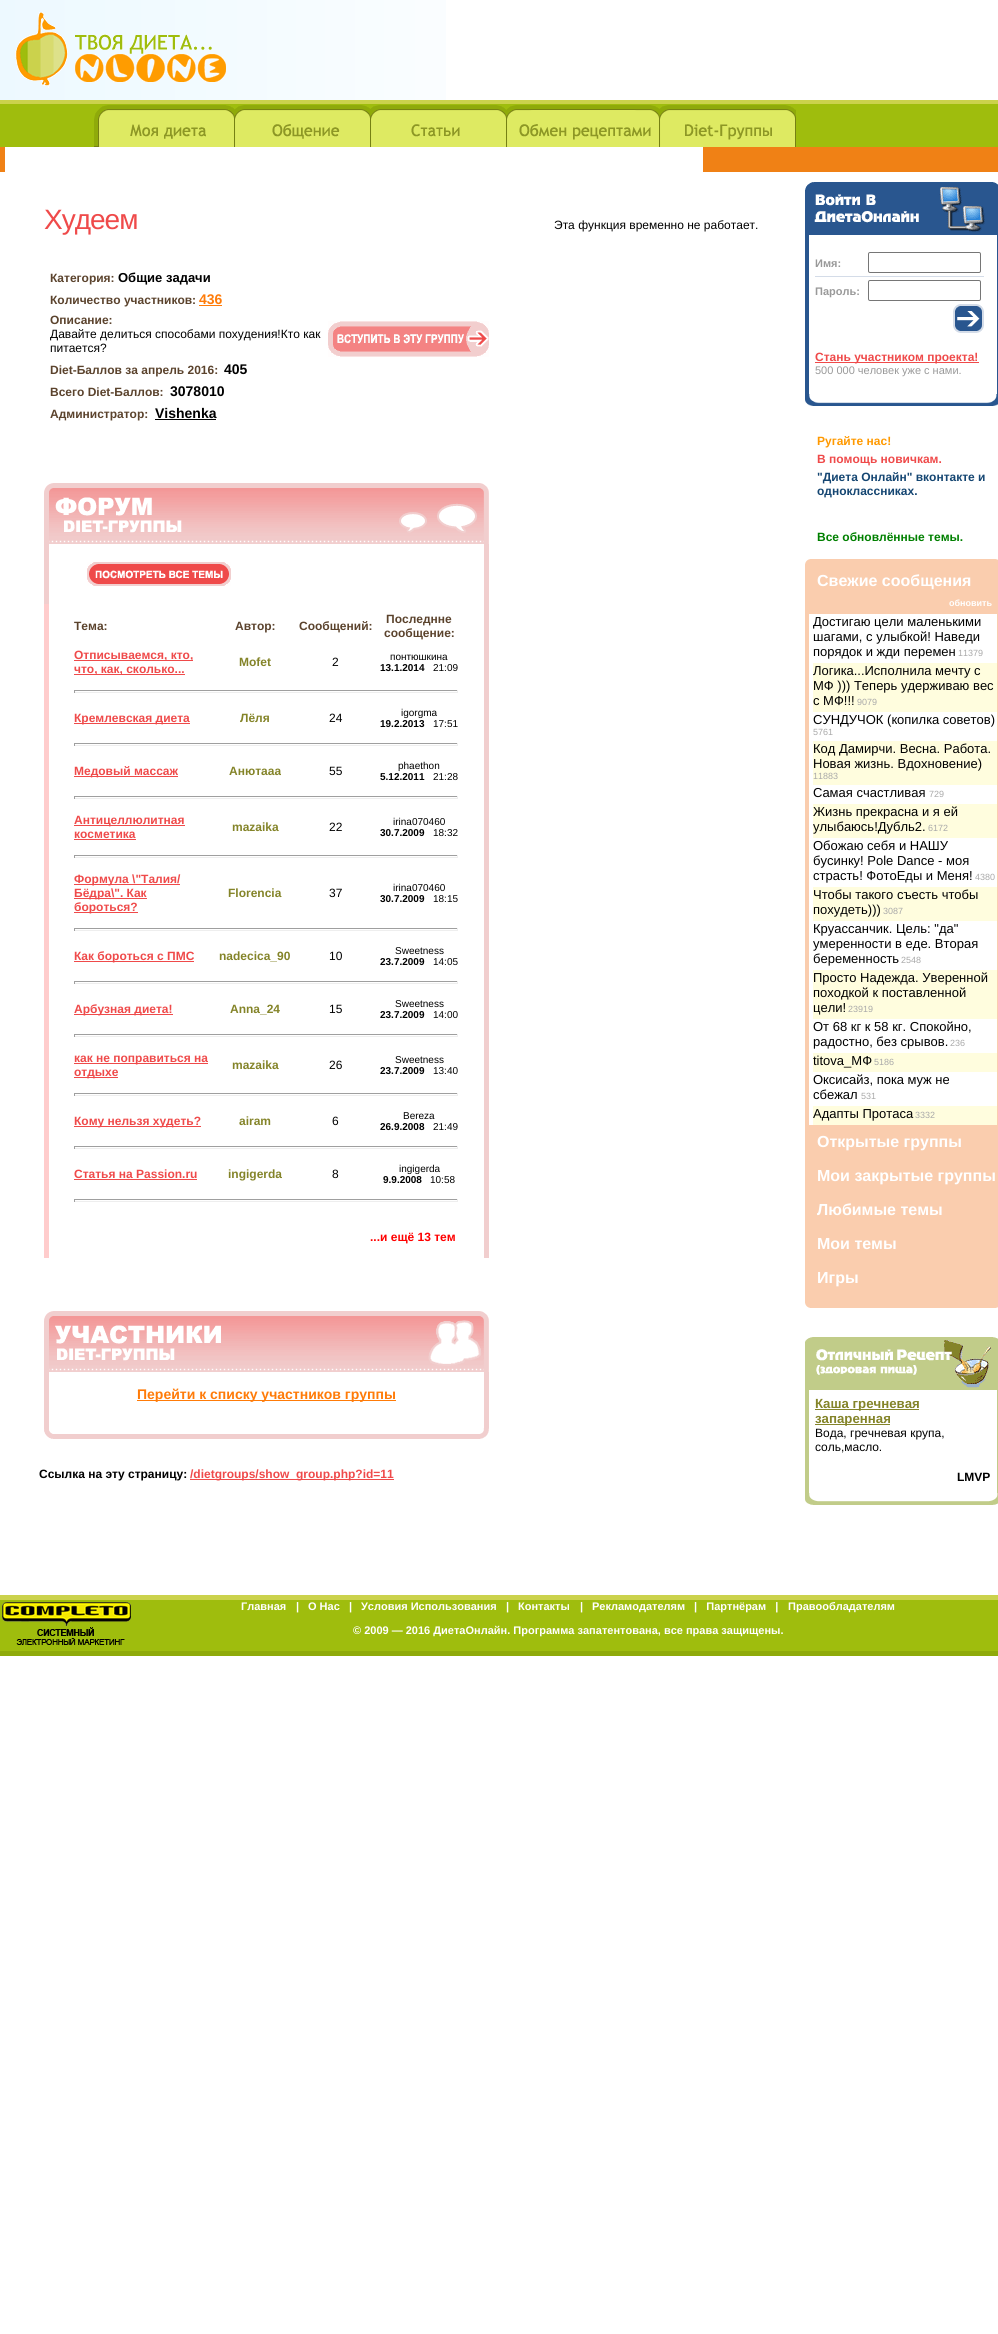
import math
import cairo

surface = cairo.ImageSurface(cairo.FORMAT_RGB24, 998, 2334)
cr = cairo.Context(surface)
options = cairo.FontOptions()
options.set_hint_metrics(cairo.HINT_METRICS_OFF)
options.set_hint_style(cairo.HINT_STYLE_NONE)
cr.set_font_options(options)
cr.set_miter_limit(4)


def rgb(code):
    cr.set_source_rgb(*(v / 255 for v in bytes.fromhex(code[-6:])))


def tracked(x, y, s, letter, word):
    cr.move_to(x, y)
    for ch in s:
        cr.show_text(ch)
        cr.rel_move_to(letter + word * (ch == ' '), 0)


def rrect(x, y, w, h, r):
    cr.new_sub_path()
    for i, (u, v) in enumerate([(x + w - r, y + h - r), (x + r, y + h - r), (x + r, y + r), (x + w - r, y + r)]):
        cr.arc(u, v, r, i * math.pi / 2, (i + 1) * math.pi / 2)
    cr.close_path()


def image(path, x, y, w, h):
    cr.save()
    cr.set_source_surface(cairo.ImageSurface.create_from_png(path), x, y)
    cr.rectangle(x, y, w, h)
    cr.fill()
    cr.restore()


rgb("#ffffff")
cr.paint()
image("img/1.png", 0, 0, 446, 100)
image("img/2.png", 15, 12, 211, 76)
image("img/3.png", 0, 100, 998, 47)
image("img/4.png", 94, 105, 141, 42)
image("img/5.png", 235, 105, 136, 42)
image("img/6.png", 371, 105, 136, 42)
image("img/7.png", 507, 105, 153, 42)
image("img/8.png", 660, 105, 136, 42)
for x, y, w, h, color in [
    (0, 147, 998, 25, "#f08115"),
    (5, 147, 698, 25, "#ffffff"),
    (199, 305, 23, 1, "#ff7b08"),
    (155, 419, 61, 1, "#000000"),
]:
    rgb(color)
    cr.rectangle(x, y, w, h)
    cr.fill()
image("img/9.png", 328, 321, 161, 36)
image("img/10.png", 44, 483, 445, 61)
rgb("#f1cece")
cr.rectangle(484, 544, 5, 714)
cr.fill()
cr.rectangle(44, 544, 5, 60)
cr.fill()
image("img/11.png", 87, 562, 144, 24)
for x, y, w, h, color in [
    (44, 604, 5, 654, "#ffcccc"),
    (74, 660, 119, 1, "#ef4a4a"),
    (74, 674, 111, 1, "#ef4a4a"),
    (74, 690, 384, 1, "#9f9f9f"),
    (457, 690, 1, 3, "#eeeeee"),
    (74, 692, 384, 1, "#eeeeee"),
    (74, 690, 1, 3, "#9f9f9f"),
    (74, 723, 116, 1, "#ef4a4a"),
    (74, 743, 384, 1, "#9f9f9f"),
    (457, 743, 1, 3, "#eeeeee"),
    (74, 745, 384, 1, "#eeeeee"),
    (74, 743, 1, 3, "#9f9f9f"),
    (74, 776, 104, 1, "#ef4a4a"),
    (74, 796, 384, 1, "#9f9f9f"),
    (457, 796, 1, 3, "#eeeeee"),
    (74, 798, 384, 1, "#eeeeee"),
    (74, 796, 1, 3, "#9f9f9f"),
    (74, 825, 111, 1, "#ef4a4a"),
    (74, 839, 62, 1, "#ef4a4a"),
    (74, 855, 384, 1, "#9f9f9f"),
    (457, 855, 1, 3, "#eeeeee"),
    (74, 857, 384, 1, "#eeeeee"),
    (74, 855, 1, 3, "#9f9f9f"),
    (74, 884, 106, 1, "#ef4a4a"),
    (74, 898, 73, 1, "#ef4a4a"),
    (74, 912, 64, 1, "#ef4a4a"),
    (74, 928, 384, 1, "#9f9f9f"),
    (457, 928, 1, 3, "#eeeeee"),
    (74, 930, 384, 1, "#eeeeee"),
    (74, 928, 1, 3, "#9f9f9f"),
    (74, 961, 120, 1, "#ef4a4a"),
    (74, 981, 384, 1, "#9f9f9f"),
    (457, 981, 1, 3, "#eeeeee"),
    (74, 983, 384, 1, "#eeeeee"),
    (74, 981, 1, 3, "#9f9f9f"),
    (74, 1014, 99, 1, "#ef4a4a"),
    (74, 1034, 384, 1, "#9f9f9f"),
    (457, 1034, 1, 3, "#eeeeee"),
    (74, 1036, 384, 1, "#eeeeee"),
    (74, 1034, 1, 3, "#9f9f9f"),
    (74, 1063, 134, 1, "#ef4a4a"),
    (74, 1077, 44, 1, "#ef4a4a"),
    (74, 1093, 384, 1, "#9f9f9f"),
    (457, 1093, 1, 3, "#eeeeee"),
    (74, 1095, 384, 1, "#eeeeee"),
    (74, 1093, 1, 3, "#9f9f9f"),
    (74, 1126, 127, 1, "#ef4a4a"),
    (74, 1146, 384, 1, "#9f9f9f"),
    (457, 1146, 1, 3, "#eeeeee"),
    (74, 1148, 384, 1, "#eeeeee"),
    (74, 1146, 1, 3, "#9f9f9f"),
    (74, 1179, 123, 1, "#ef4a4a"),
    (74, 1199, 384, 1, "#9f9f9f"),
    (457, 1199, 1, 3, "#eeeeee"),
    (74, 1201, 384, 1, "#eeeeee"),
    (74, 1199, 1, 3, "#9f9f9f"),
]:
    rgb(color)
    cr.rectangle(x, y, w, h)
    cr.fill()
image("img/12.png", 44, 1311, 445, 61)
for x, y, w, h, color in [
    (484, 1372, 5, 56, "#f1cece"),
    (44, 1372, 5, 56, "#f1cece"),
    (137, 1400, 259, 1, "#ff7b08"),
]:
    rgb(color)
    cr.rectangle(x, y, w, h)
    cr.fill()
image("img/13.png", 44, 1428, 445, 11)
rgb("#ef4a4a")
cr.rectangle(190, 1479, 204, 1)
cr.fill()
image("img/14.png", 805, 182, 193, 53)
rgb("#29568f")
cr.rectangle(997, 235, 1, 159)
cr.fill()
cr.rectangle(805, 235, 4, 159)
cr.fill()
rrect(868.5, 252.5, 112, 20, 1.5)
rgb("#767676")
cr.set_line_width(1)
cr.stroke()
rgb("#d4dce8")
cr.rectangle(815, 276, 169, 1)
cr.fill()
rrect(868.5, 280.5, 112, 20, 1.5)
rgb("#767676")
cr.stroke()
image("img/15.png", 953, 304, 31, 29)
rgb("#ef4a4a")
cr.rectangle(815, 362, 164, 1)
cr.fill()
image("img/16.png", 805, 394, 193, 12)
image("img/17.png", 805, 559, 193, 9)
rgb("#facdae")
cr.rectangle(805, 568, 193, 26)
cr.fill()
cr.rectangle(807, 596, 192, 531)
cr.set_line_width(4)
cr.stroke()
for x, y, w, h, color in [
    (809, 598, 188, 16, "#facdae"),
    (813, 663, 184, 49, "#fffdde"),
    (813, 741, 184, 44, "#fffdde"),
    (813, 804, 184, 34, "#fffdde"),
    (813, 887, 184, 34, "#fffdde"),
    (813, 970, 184, 49, "#fffdde"),
    (813, 1053, 184, 19, "#fffdde"),
    (813, 1106, 184, 19, "#fffdde"),
    (805, 1129, 193, 170, "#facdae"),
]:
    rgb(color)
    cr.rectangle(x, y, w, h)
    cr.fill()
image("img/18.png", 805, 1299, 193, 9)
image("img/19.png", 805, 1337, 193, 53)
for x, y, w, h, color in [
    (997, 1390, 1, 103, "#c1cc89"),
    (805, 1390, 4, 103, "#c1cc89"),
    (815, 1409, 104, 1, "#848429"),
    (815, 1424, 75, 1, "#848429"),
]:
    rgb(color)
    cr.rectangle(x, y, w, h)
    cr.fill()
image("img/20.png", 805, 1493, 193, 12)
rgb("#cbd24c")
cr.rectangle(0, 1595, 998, 5)
cr.fill()
rgb("#9fbd0d")
cr.rectangle(0, 1600, 998, 51)
cr.fill()
image("img/21.png", 2, 1602, 129, 43)
rgb("#8faa0a")
cr.rectangle(0, 1651, 998, 5)
cr.fill()
cr.select_font_face("Liberation Sans")
cr.set_font_size(28)
rgb("#ef4a4a")
tracked(44, 229, "Худеем", -1, 0)
cr.select_font_face("Liberation Sans", cairo.FONT_SLANT_NORMAL, cairo.FONT_WEIGHT_BOLD)
cr.set_font_size(12)
rgb("#5b432d")
cr.move_to(50, 282)
cr.show_text("Категория:")
cr.set_font_size(13)
rgb("#000000")
cr.move_to(118, 282)
cr.show_text("Общие задачи")
cr.set_font_size(12)
rgb("#5b432d")
cr.move_to(50, 304)
cr.show_text("Количество участников:")
cr.set_font_size(14)
rgb("#ff7b08")
cr.move_to(199, 304)
cr.show_text("436")
cr.set_font_size(12)
rgb("#5b432d")
cr.move_to(50, 324)
cr.show_text("Описание:")
cr.select_font_face("Liberation Sans")
rgb("#000000")
cr.move_to(50, 338)
cr.show_text("Давайте делиться способами похудения!Кто как")
cr.move_to(50, 352)
cr.show_text("питается?")
cr.select_font_face("Liberation Sans", cairo.FONT_SLANT_NORMAL, cairo.FONT_WEIGHT_BOLD)
rgb("#5b432d")
cr.move_to(50, 374)
cr.show_text("Diet-Баллов за апрель 2016:")
cr.set_font_size(14)
rgb("#000000")
cr.move_to(224, 374)
cr.show_text("405")
cr.set_font_size(12)
rgb("#5b432d")
cr.move_to(50, 396)
cr.show_text("Всего Diet-Баллов:")
cr.set_font_size(14)
rgb("#000000")
cr.move_to(170, 396)
cr.show_text("3078010")
cr.set_font_size(12)
rgb("#5b432d")
cr.move_to(50, 418)
cr.show_text("Администратор:")
cr.set_font_size(14)
rgb("#000000")
cr.move_to(155, 418)
cr.show_text("Vishenka")
cr.set_font_size(12)
rgb("#5b432d")
for x, y, s in [
    (74, 630, "Тема:"),
    (235, 630, "Автор:"),
    (299, 630, "Сообщений:"),
    (386, 623, "Последнне"),
    (384, 637, "сообщение:"),
]:
    cr.move_to(x, y)
    cr.show_text(s)
rgb("#ef4a4a")
cr.move_to(74, 659)
cr.show_text("Отписываемся, кто,")
cr.move_to(74, 673)
cr.show_text("что, как, сколько...")
rgb("#848429")
cr.move_to(239, 666)
cr.show_text("Mofet")
cr.select_font_face("Liberation Sans")
rgb("#000000")
cr.move_to(332, 666)
cr.show_text("2")
cr.set_font_size(10)
cr.move_to(390, 660)
cr.show_text("понтюшкина")
cr.select_font_face("Liberation Sans", cairo.FONT_SLANT_NORMAL, cairo.FONT_WEIGHT_BOLD)
cr.move_to(380, 671)
cr.show_text("13.1.2014")
cr.select_font_face("Liberation Sans")
cr.move_to(433, 671)
cr.show_text("21:09")
cr.select_font_face("Liberation Sans", cairo.FONT_SLANT_NORMAL, cairo.FONT_WEIGHT_BOLD)
cr.set_font_size(12)
rgb("#ef4a4a")
cr.move_to(74, 722)
cr.show_text("Кремлевская диета")
rgb("#848429")
cr.move_to(240, 722)
cr.show_text("Лёля")
cr.select_font_face("Liberation Sans")
rgb("#000000")
cr.move_to(329, 722)
cr.show_text("24")
cr.set_font_size(10)
cr.move_to(401, 716)
cr.show_text("igorgma")
cr.select_font_face("Liberation Sans", cairo.FONT_SLANT_NORMAL, cairo.FONT_WEIGHT_BOLD)
cr.move_to(380, 727)
cr.show_text("19.2.2013")
cr.select_font_face("Liberation Sans")
cr.move_to(433, 727)
cr.show_text("17:51")
cr.select_font_face("Liberation Sans", cairo.FONT_SLANT_NORMAL, cairo.FONT_WEIGHT_BOLD)
cr.set_font_size(12)
rgb("#ef4a4a")
cr.move_to(74, 775)
cr.show_text("Медовый массаж")
rgb("#848429")
cr.move_to(229, 775)
cr.show_text("Анютааа")
cr.select_font_face("Liberation Sans")
rgb("#000000")
cr.move_to(329, 775)
cr.show_text("55")
cr.set_font_size(10)
cr.move_to(398, 769)
cr.show_text("phaethon")
cr.select_font_face("Liberation Sans", cairo.FONT_SLANT_NORMAL, cairo.FONT_WEIGHT_BOLD)
cr.move_to(380, 780)
cr.show_text("5.12.2011")
cr.select_font_face("Liberation Sans")
cr.move_to(433, 780)
cr.show_text("21:28")
cr.select_font_face("Liberation Sans", cairo.FONT_SLANT_NORMAL, cairo.FONT_WEIGHT_BOLD)
cr.set_font_size(12)
rgb("#ef4a4a")
cr.move_to(74, 824)
cr.show_text("Антицеллюлитная")
cr.move_to(74, 838)
cr.show_text("косметика")
rgb("#848429")
cr.move_to(232, 831)
cr.show_text("mazaika")
cr.select_font_face("Liberation Sans")
rgb("#000000")
cr.move_to(329, 831)
cr.show_text("22")
cr.set_font_size(10)
cr.move_to(393, 825)
cr.show_text("irina070460")
cr.select_font_face("Liberation Sans", cairo.FONT_SLANT_NORMAL, cairo.FONT_WEIGHT_BOLD)
cr.move_to(380, 836)
cr.show_text("30.7.2009")
cr.select_font_face("Liberation Sans")
cr.move_to(433, 836)
cr.show_text("18:32")
cr.select_font_face("Liberation Sans", cairo.FONT_SLANT_NORMAL, cairo.FONT_WEIGHT_BOLD)
cr.set_font_size(12)
rgb("#ef4a4a")
for x, y, s in [
    (74, 883, "Формула \\\"Талия/"),
    (74, 897, "Бёдра\\\". Как"),
    (74, 911, "бороться?"),
]:
    cr.move_to(x, y)
    cr.show_text(s)
rgb("#848429")
cr.move_to(228, 897)
cr.show_text("Florencia")
cr.select_font_face("Liberation Sans")
rgb("#000000")
cr.move_to(329, 897)
cr.show_text("37")
cr.set_font_size(10)
cr.move_to(393, 891)
cr.show_text("irina070460")
cr.select_font_face("Liberation Sans", cairo.FONT_SLANT_NORMAL, cairo.FONT_WEIGHT_BOLD)
cr.move_to(380, 902)
cr.show_text("30.7.2009")
cr.select_font_face("Liberation Sans")
cr.move_to(433, 902)
cr.show_text("18:15")
cr.select_font_face("Liberation Sans", cairo.FONT_SLANT_NORMAL, cairo.FONT_WEIGHT_BOLD)
cr.set_font_size(12)
rgb("#ef4a4a")
cr.move_to(74, 960)
cr.show_text("Как бороться с ПМС")
rgb("#848429")
cr.move_to(219, 960)
cr.show_text("nadecica_90")
cr.select_font_face("Liberation Sans")
rgb("#000000")
cr.move_to(329, 960)
cr.show_text("10")
cr.set_font_size(10)
cr.move_to(395, 954)
cr.show_text("Sweetness")
cr.select_font_face("Liberation Sans", cairo.FONT_SLANT_NORMAL, cairo.FONT_WEIGHT_BOLD)
cr.move_to(380, 965)
cr.show_text("23.7.2009")
cr.select_font_face("Liberation Sans")
cr.move_to(433, 965)
cr.show_text("14:05")
cr.select_font_face("Liberation Sans", cairo.FONT_SLANT_NORMAL, cairo.FONT_WEIGHT_BOLD)
cr.set_font_size(12)
rgb("#ef4a4a")
cr.move_to(74, 1013)
cr.show_text("Арбузная диета!")
rgb("#848429")
cr.move_to(230, 1013)
cr.show_text("Anna_24")
cr.select_font_face("Liberation Sans")
rgb("#000000")
cr.move_to(329, 1013)
cr.show_text("15")
cr.set_font_size(10)
cr.move_to(395, 1007)
cr.show_text("Sweetness")
cr.select_font_face("Liberation Sans", cairo.FONT_SLANT_NORMAL, cairo.FONT_WEIGHT_BOLD)
cr.move_to(380, 1018)
cr.show_text("23.7.2009")
cr.select_font_face("Liberation Sans")
cr.move_to(433, 1018)
cr.show_text("14:00")
cr.select_font_face("Liberation Sans", cairo.FONT_SLANT_NORMAL, cairo.FONT_WEIGHT_BOLD)
cr.set_font_size(12)
rgb("#ef4a4a")
cr.move_to(74, 1062)
cr.show_text("как не поправиться на")
cr.move_to(74, 1076)
cr.show_text("отдыхе")
rgb("#848429")
cr.move_to(232, 1069)
cr.show_text("mazaika")
cr.select_font_face("Liberation Sans")
rgb("#000000")
cr.move_to(329, 1069)
cr.show_text("26")
cr.set_font_size(10)
cr.move_to(395, 1063)
cr.show_text("Sweetness")
cr.select_font_face("Liberation Sans", cairo.FONT_SLANT_NORMAL, cairo.FONT_WEIGHT_BOLD)
cr.move_to(380, 1074)
cr.show_text("23.7.2009")
cr.select_font_face("Liberation Sans")
cr.move_to(433, 1074)
cr.show_text("13:40")
cr.select_font_face("Liberation Sans", cairo.FONT_SLANT_NORMAL, cairo.FONT_WEIGHT_BOLD)
cr.set_font_size(12)
rgb("#ef4a4a")
cr.move_to(74, 1125)
cr.show_text("Кому нельзя худеть?")
rgb("#848429")
cr.move_to(239, 1125)
cr.show_text("airam")
cr.select_font_face("Liberation Sans")
rgb("#000000")
cr.move_to(332, 1125)
cr.show_text("6")
cr.set_font_size(10)
cr.move_to(403, 1119)
cr.show_text("Bereza")
cr.select_font_face("Liberation Sans", cairo.FONT_SLANT_NORMAL, cairo.FONT_WEIGHT_BOLD)
cr.move_to(380, 1130)
cr.show_text("26.9.2008")
cr.select_font_face("Liberation Sans")
cr.move_to(433, 1130)
cr.show_text("21:49")
cr.select_font_face("Liberation Sans", cairo.FONT_SLANT_NORMAL, cairo.FONT_WEIGHT_BOLD)
cr.set_font_size(12)
rgb("#ef4a4a")
cr.move_to(74, 1178)
cr.show_text("Статья на Passion.ru")
rgb("#848429")
cr.move_to(228, 1178)
cr.show_text("ingigerda")
cr.select_font_face("Liberation Sans")
rgb("#000000")
cr.move_to(332, 1178)
cr.show_text("8")
cr.set_font_size(10)
cr.move_to(399, 1172)
cr.show_text("ingigerda")
cr.select_font_face("Liberation Sans", cairo.FONT_SLANT_NORMAL, cairo.FONT_WEIGHT_BOLD)
cr.move_to(383, 1183)
cr.show_text("9.9.2008")
cr.select_font_face("Liberation Sans")
cr.move_to(430, 1183)
cr.show_text("10:58")
cr.select_font_face("Liberation Sans", cairo.FONT_SLANT_NORMAL, cairo.FONT_WEIGHT_BOLD)
cr.set_font_size(12)
rgb("#ff0000")
cr.move_to(370, 1241)
cr.show_text("...и ещё 13 тем")
cr.set_font_size(14)
rgb("#ff7b08")
cr.move_to(137, 1399)
cr.show_text("Перейти к списку участников группы")
cr.select_font_face("Liberation Sans")
cr.set_font_size(12)
rgb("#000000")
cr.move_to(554, 229)
cr.show_text("Эта функция временно не работает.")
cr.select_font_face("Liberation Sans", cairo.FONT_SLANT_NORMAL, cairo.FONT_WEIGHT_BOLD)
cr.move_to(39, 1478)
cr.show_text("Ссылка на эту страницу:")
rgb("#ef4a4a")
cr.move_to(190, 1478)
cr.show_text("/dietgroups/show_group.php?id=11")
cr.set_font_size(11)
rgb("#999999")
cr.move_to(815, 267)
cr.show_text("Имя:")
cr.move_to(815, 295)
cr.show_text("Пароль:")
cr.set_font_size(12)
rgb("#ef4a4a")
cr.move_to(815, 361)
cr.show_text("Стань участником проекта!")
cr.select_font_face("Liberation Sans")
cr.set_font_size(11)
rgb("#999999")
cr.move_to(815, 374)
cr.show_text("500 000 человек уже с нами.")
cr.select_font_face("Liberation Sans", cairo.FONT_SLANT_NORMAL, cairo.FONT_WEIGHT_BOLD)
cr.set_font_size(12)
rgb("#ff9900")
cr.move_to(817, 445)
cr.show_text("Ругайте нас!")
rgb("#ef4a4a")
cr.move_to(817, 463)
cr.show_text("В помощь новичкам.")
rgb("#154672")
cr.move_to(817, 481)
cr.show_text("\"Диета Онлайн\" вконтакте и")
cr.move_to(817, 495)
cr.show_text("одноклассниках.")
rgb("#008000")
cr.move_to(817, 541)
cr.show_text("Все обновлённые темы.")
cr.set_font_size(16)
rgb("#ffffff")
cr.move_to(817, 586)
cr.show_text("Свежие сообщения")
cr.set_font_size(9)
cr.move_to(949, 606)
cr.show_text("обновить")
cr.select_font_face("Liberation Sans")
cr.set_font_size(13)
rgb("#000000")
for x, y, s in [
    (813, 626, "Достигаю цели маленькими"),
    (813, 641, "шагами, с улыбкой! Наведи"),
    (813, 656, "порядок и жди перемен"),
]:
    cr.move_to(x, y)
    cr.show_text(s)
cr.set_font_size(9)
rgb("#a9a9a9")
cr.move_to(958, 656)
cr.show_text("11379")
cr.set_font_size(13)
rgb("#000000")
for x, y, s in [
    (813, 675, "Логика...Исполнила мечту с"),
    (813, 690, "МФ ))) Теперь удерживаю вес"),
    (813, 705, "с МФ!!!"),
]:
    cr.move_to(x, y)
    cr.show_text(s)
cr.set_font_size(9)
rgb("#a9a9a9")
cr.move_to(857, 705)
cr.show_text("9079")
cr.set_font_size(13)
rgb("#000000")
cr.move_to(813, 724)
cr.show_text("СУНДУЧОК (копилка советов)")
cr.set_font_size(9)
rgb("#a9a9a9")
cr.move_to(813, 735)
cr.show_text("5761")
cr.set_font_size(13)
rgb("#000000")
cr.move_to(813, 753)
cr.show_text("Код Дамирчи. Весна. Работа.")
cr.move_to(813, 768)
cr.show_text("Новая жизнь. Вдохновение)")
cr.set_font_size(9)
rgb("#a9a9a9")
cr.move_to(813, 779)
cr.show_text("11883")
cr.set_font_size(13)
rgb("#000000")
cr.move_to(813, 797)
cr.show_text("Самая счастливая")
cr.set_font_size(9)
rgb("#a9a9a9")
cr.move_to(929, 797)
cr.show_text("729")
cr.set_font_size(13)
rgb("#000000")
cr.move_to(813, 816)
cr.show_text("Жизнь прекрасна и я ей")
cr.move_to(813, 831)
cr.show_text("улыбаюсь!Дубль2.")
cr.set_font_size(9)
rgb("#a9a9a9")
cr.move_to(928, 831)
cr.show_text("6172")
cr.set_font_size(13)
rgb("#000000")
for x, y, s in [
    (813, 850, "Обожаю себя и НАШУ"),
    (813, 865, "бусинку! Pole Dance - моя"),
    (813, 880, "страсть! ФотоЕды и Меня!"),
]:
    cr.move_to(x, y)
    cr.show_text(s)
cr.set_font_size(9)
rgb("#a9a9a9")
cr.move_to(975, 880)
cr.show_text("4380")
cr.set_font_size(13)
rgb("#000000")
cr.move_to(813, 899)
cr.show_text("Чтобы такого съесть чтобы")
cr.move_to(813, 914)
cr.show_text("похудеть)))")
cr.set_font_size(9)
rgb("#a9a9a9")
cr.move_to(883, 914)
cr.show_text("3087")
cr.set_font_size(13)
rgb("#000000")
for x, y, s in [
    (813, 933, "Круассанчик. Цель: \"да\""),
    (813, 948, "умеренности в еде. Вторая"),
    (813, 963, "беременность"),
]:
    cr.move_to(x, y)
    cr.show_text(s)
cr.set_font_size(9)
rgb("#a9a9a9")
cr.move_to(901, 963)
cr.show_text("2548")
cr.set_font_size(13)
rgb("#000000")
for x, y, s in [
    (813, 982, "Просто Надежда. Уверенной"),
    (813, 997, "походкой к поставленной"),
    (813, 1012, "цели!"),
]:
    cr.move_to(x, y)
    cr.show_text(s)
cr.set_font_size(9)
rgb("#a9a9a9")
cr.move_to(848, 1012)
cr.show_text("23919")
cr.set_font_size(13)
rgb("#000000")
cr.move_to(813, 1031)
cr.show_text("От 68 кг к 58 кг. Спокойно,")
cr.move_to(813, 1046)
cr.show_text("радостно, без срывов.")
cr.set_font_size(9)
rgb("#a9a9a9")
cr.move_to(950, 1046)
cr.show_text("236")
cr.set_font_size(13)
rgb("#000000")
cr.move_to(813, 1065)
cr.show_text("titova_МФ")
cr.set_font_size(9)
rgb("#a9a9a9")
cr.move_to(874, 1065)
cr.show_text("5186")
cr.set_font_size(13)
rgb("#000000")
cr.move_to(813, 1084)
cr.show_text("Оксисайз, пока муж не")
cr.move_to(813, 1099)
cr.show_text("сбежал")
cr.set_font_size(9)
rgb("#a9a9a9")
cr.move_to(861, 1099)
cr.show_text("531")
cr.set_font_size(13)
rgb("#000000")
cr.move_to(813, 1118)
cr.show_text("Адапты Протаса")
cr.set_font_size(9)
rgb("#a9a9a9")
cr.move_to(915, 1118)
cr.show_text("3332")
cr.select_font_face("Liberation Sans", cairo.FONT_SLANT_NORMAL, cairo.FONT_WEIGHT_BOLD)
cr.set_font_size(16)
rgb("#ffffff")
for x, y, s in [
    (817, 1147, "Открытые группы"),
    (817, 1181, "Мои закрытые группы"),
    (817, 1215, "Любимые темы"),
    (817, 1249, "Мои темы"),
    (817, 1283, "Игры"),
]:
    cr.move_to(x, y)
    cr.show_text(s)
cr.set_font_size(13.25)
rgb("#848429")
cr.move_to(815, 1408)
cr.show_text("Каша гречневая")
cr.move_to(815, 1423)
cr.show_text("запаренная")
cr.select_font_face("Liberation Sans")
cr.set_font_size(12)
rgb("#000000")
cr.move_to(815, 1437)
cr.show_text("Вода, гречневая крупа,")
cr.move_to(815, 1451)
cr.show_text("соль,масло.")
cr.select_font_face("Liberation Sans", cairo.FONT_SLANT_NORMAL, cairo.FONT_WEIGHT_BOLD)
cr.move_to(957, 1481)
cr.show_text("LMVP")
cr.set_font_size(11)
rgb("#ffffff")
for x, y, s in [
    (241, 1610, "Главная"),
    (296, 1610, "|"),
    (308, 1610, "О Нас"),
    (349, 1610, "|"),
    (361, 1610, "Условия Использования"),
    (506, 1610, "|"),
    (518, 1610, "Контакты"),
    (580, 1610, "|"),
    (592, 1610, "Рекламодателям"),
    (694, 1610, "|   Партнёрам   |"),
    (788, 1610, "Правообладателям"),
    (353, 1634, "© 2009 — 2016 ДиетаОнлайн. Программа запатентована, все права защищены."),
]:
    cr.move_to(x, y)
    cr.show_text(s)
surface.write_to_png("page.png")
